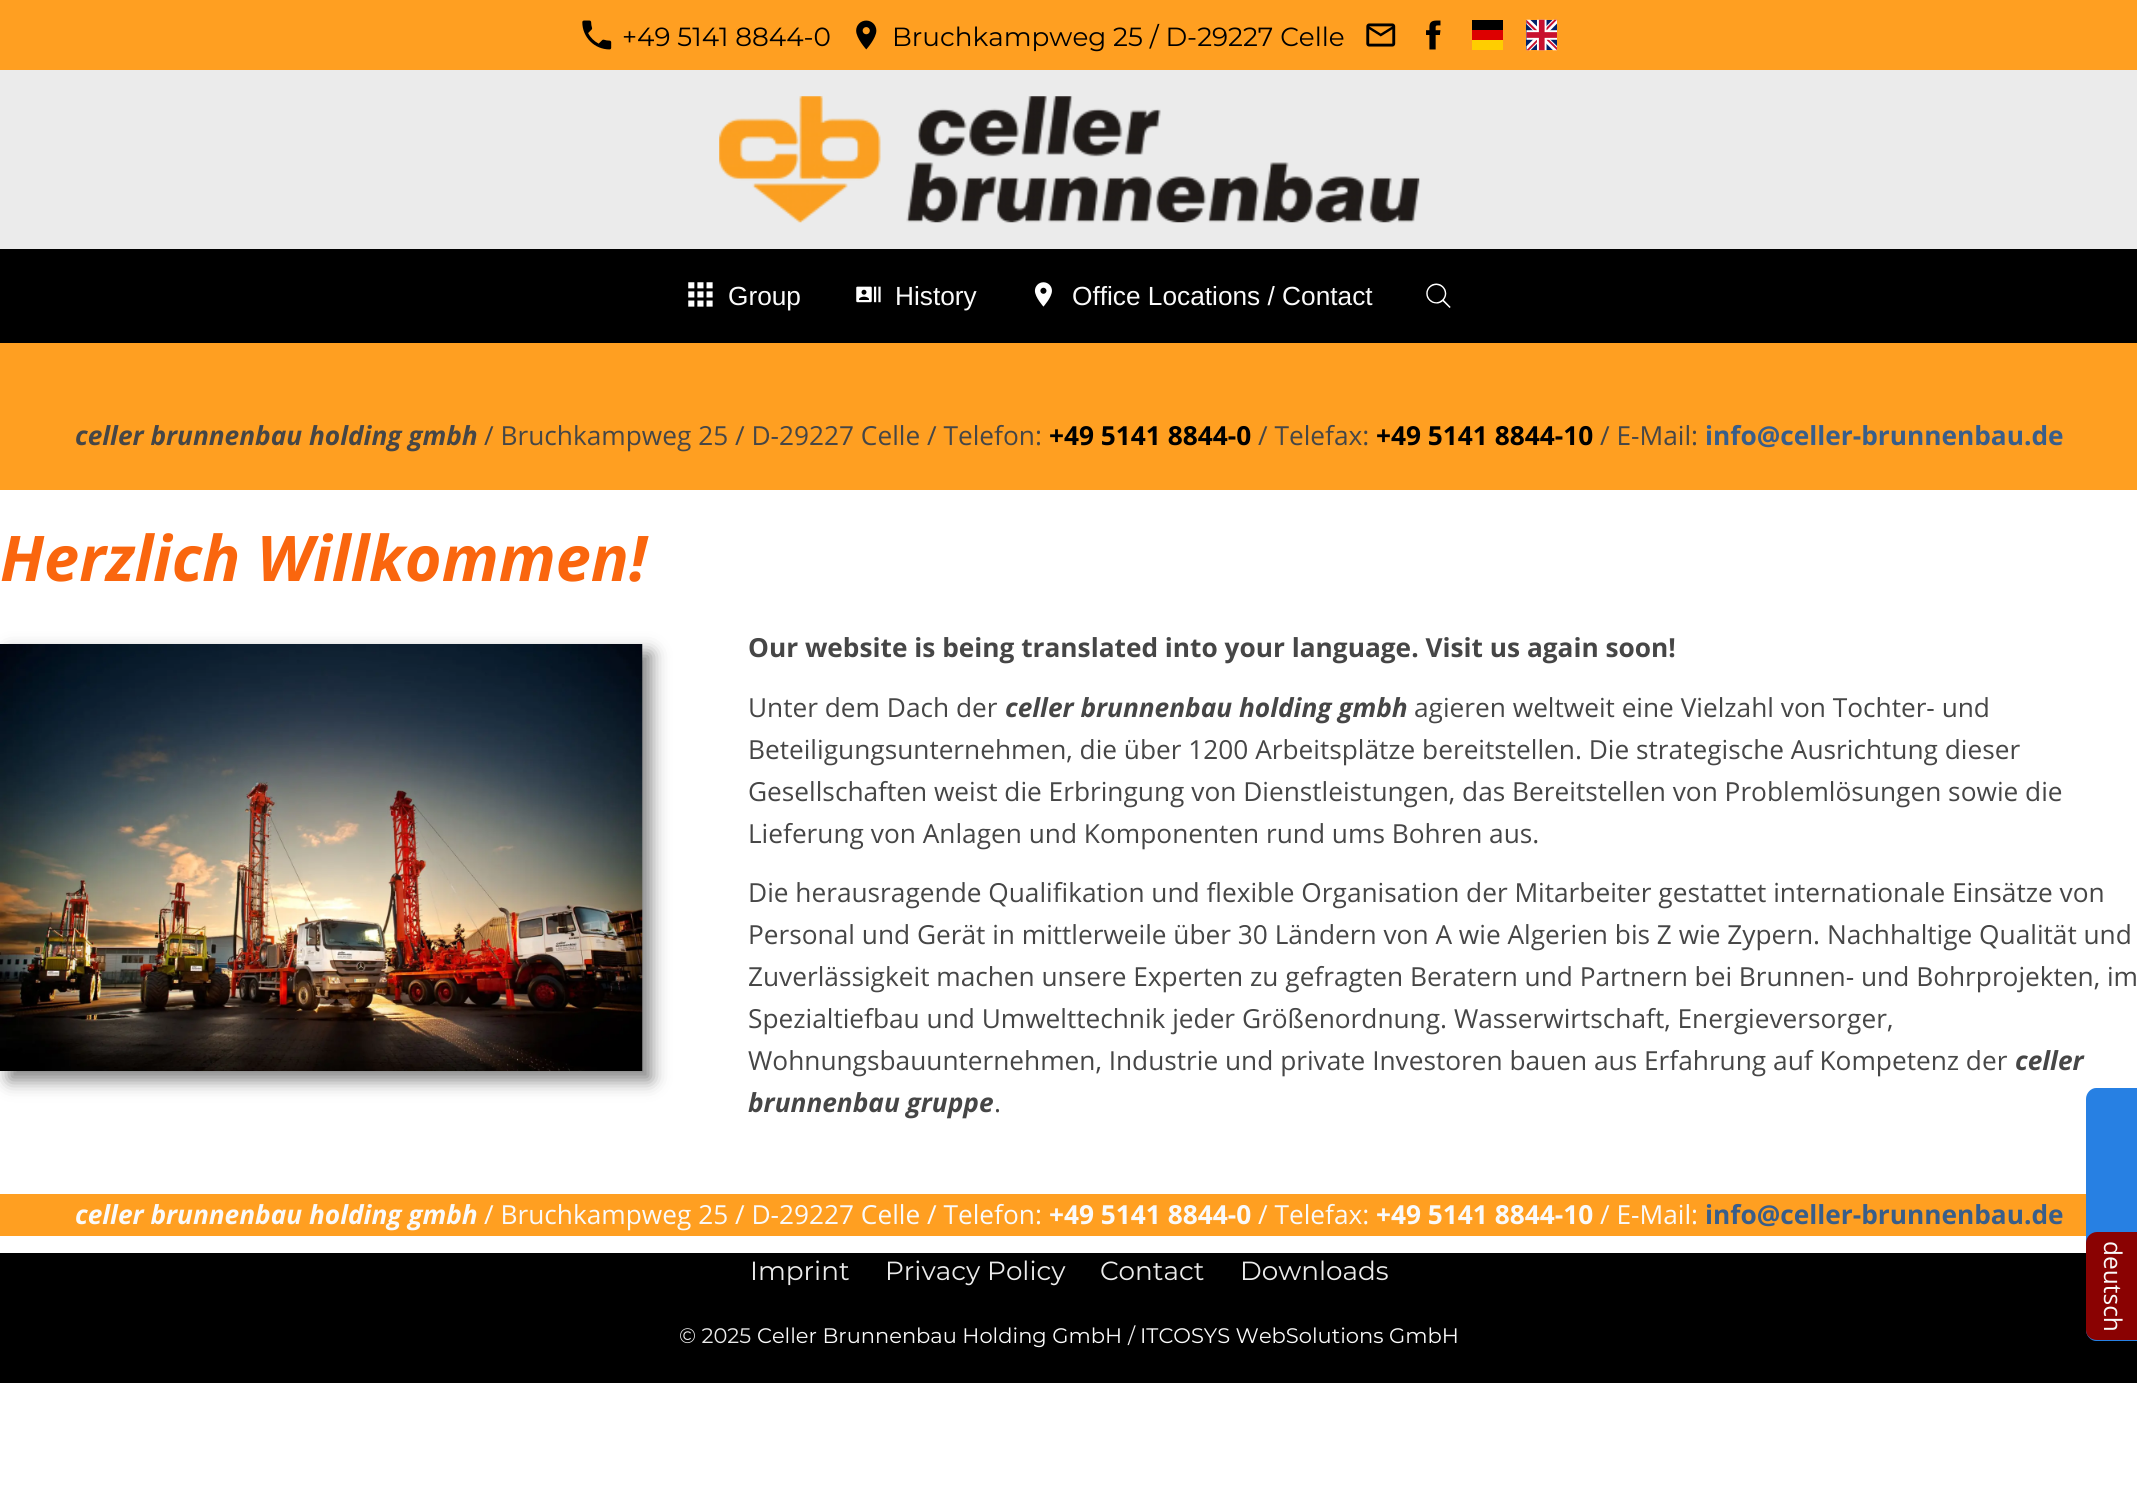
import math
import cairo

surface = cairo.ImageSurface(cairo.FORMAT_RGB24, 2137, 1487)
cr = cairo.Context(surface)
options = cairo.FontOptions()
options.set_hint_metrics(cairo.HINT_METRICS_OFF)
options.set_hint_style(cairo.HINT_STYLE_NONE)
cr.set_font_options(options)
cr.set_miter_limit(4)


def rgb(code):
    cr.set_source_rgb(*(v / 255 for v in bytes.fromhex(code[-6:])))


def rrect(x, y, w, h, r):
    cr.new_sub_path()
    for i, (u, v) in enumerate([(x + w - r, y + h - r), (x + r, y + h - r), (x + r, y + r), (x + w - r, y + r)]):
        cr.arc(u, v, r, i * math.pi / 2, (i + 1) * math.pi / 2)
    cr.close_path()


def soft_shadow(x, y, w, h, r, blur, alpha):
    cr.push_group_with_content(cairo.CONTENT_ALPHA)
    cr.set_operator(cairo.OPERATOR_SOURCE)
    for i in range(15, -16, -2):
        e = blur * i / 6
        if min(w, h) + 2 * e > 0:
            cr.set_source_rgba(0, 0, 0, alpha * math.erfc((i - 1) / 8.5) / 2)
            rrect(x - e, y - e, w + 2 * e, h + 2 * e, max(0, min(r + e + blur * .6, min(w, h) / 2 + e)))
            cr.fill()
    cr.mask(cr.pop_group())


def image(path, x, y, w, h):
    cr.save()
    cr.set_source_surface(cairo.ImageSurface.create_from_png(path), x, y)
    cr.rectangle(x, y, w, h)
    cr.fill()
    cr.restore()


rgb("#ffffff")
cr.paint()
rgb("#ff9f21")
cr.rectangle(0, 0, 2137, 70)
cr.fill()
image("img/1.png", 582, 20, 30, 30)
image("img/2.png", 856, 20, 21, 30)
image("img/3.png", 1366, 23, 30, 24)
image("img/4.png", 1426, 20, 15, 30)
for x, y, w, h, color in [
    (1472, 40, 31, 10, "#ffce00"),
    (1472, 20, 31, 10, "#000000"),
    (1472, 30, 31, 10, "#dd0000"),
]:
    rgb(color)
    cr.rectangle(x, y, w, h)
    cr.fill()
image("img/5.png", 1526, 19, 31, 32)
rgb("#ebebeb")
cr.rectangle(0, 70, 2137, 179)
cr.fill()
image("img/6.png", 719, 96, 701, 127)
rgb("#000000")
cr.rectangle(0, 249, 2137, 94)
cr.fill()
image("img/7.png", 688, 282, 25, 25)
image("img/8.png", 856, 286, 25, 17)
image("img/9.png", 1034, 282, 18, 25)
image("img/10.png", 1426, 283, 25, 25)
rgb("#ff9f21")
cr.rectangle(0, 343, 2137, 147)
cr.fill()
rgb("#000000")
cr.rectangle(0, 1253, 2137, 130)
cr.fill()
rgb("#2780e3")
cr.new_path()
cr.move_to(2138, 1088)
cr.line_to(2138, 1341)
cr.line_to(2096, 1341)
cr.curve_to(2091, 1341, 2086, 1336, 2086, 1330)
cr.line_to(2086, 1099)
cr.curve_to(2086, 1093, 2091, 1088, 2096, 1088)
cr.close_path()
cr.fill()
rgb("#8a0202")
cr.new_path()
cr.move_to(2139, 1232)
cr.line_to(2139, 1340)
cr.line_to(2097, 1340)
cr.curve_to(2091, 1340, 2086, 1336, 2086, 1330)
cr.line_to(2086, 1243)
cr.curve_to(2086, 1237, 2091, 1232, 2097, 1232)
cr.close_path()
cr.fill()
rgb("#000000")
soft_shadow(9, 653, 642, 427, 0, 9, 0.5)
image("img/11.png", 0, 644, 643, 427)
rgb("#ff9f21")
cr.rectangle(0, 1194, 2086, 42)
cr.fill()
cr.select_font_face("Montserrat")
cr.set_font_size(26.25)
rgb("#000000")
cr.move_to(622, 46)
cr.show_text("+49 5141 8844-0")
cr.move_to(892, 46)
cr.show_text("Bruchkampweg 25 / D-29227 Celle")
cr.select_font_face("Liberation Sans")
rgb("#fafafa")
for x, y, s in [
    (728, 305, "Group"),
    (895, 305, "History"),
    (1072, 305, "Office Locations / Contact"),
]:
    cr.move_to(x, y)
    cr.show_text(s)
cr.select_font_face("Open Sans", cairo.FONT_SLANT_ITALIC, cairo.FONT_WEIGHT_BOLD)
rgb("#464646")
cr.move_to(75, 445)
cr.show_text("celler brunnenbau holding gmbh")
cr.select_font_face("Open Sans")
cr.move_to(484, 445)
cr.show_text("/ Bruchkampweg 25 / D-29227 Celle / Telefon:")
cr.select_font_face("Open Sans", cairo.FONT_SLANT_NORMAL, cairo.FONT_WEIGHT_BOLD)
rgb("#000000")
cr.move_to(1049, 445)
cr.show_text("+49 5141 8844-0")
cr.select_font_face("Open Sans")
rgb("#464646")
cr.move_to(1258, 445)
cr.show_text("/ Telefax:")
cr.select_font_face("Open Sans", cairo.FONT_SLANT_NORMAL, cairo.FONT_WEIGHT_BOLD)
rgb("#000000")
cr.move_to(1376, 445)
cr.show_text("+49 5141 8844-10")
cr.select_font_face("Open Sans")
rgb("#464646")
cr.move_to(1600, 445)
cr.show_text("/ E-Mail:")
cr.select_font_face("Open Sans", cairo.FONT_SLANT_NORMAL, cairo.FONT_WEIGHT_BOLD)
rgb("#395e8a")
cr.move_to(1705, 445)
cr.show_text("info@celler-brunnenbau.de")
cr.select_font_face("Open Sans")
cr.set_font_size(24.5)
rgb("#fafafa")
cr.save()
cr.translate(2104, 1241)
cr.rotate(90 * math.pi / 180)
cr.move_to(0, 0)
cr.show_text("deutsch")
cr.restore()
cr.select_font_face("Open Sans", cairo.FONT_SLANT_ITALIC, cairo.FONT_WEIGHT_BOLD)
cr.set_font_size(63)
rgb("#fa660e")
cr.move_to(0, 581)
cr.show_text("Herzlich Willkommen!")
cr.select_font_face("Open Sans", cairo.FONT_SLANT_NORMAL, cairo.FONT_WEIGHT_BOLD)
cr.set_font_size(26.25)
rgb("#464646")
cr.move_to(748, 657)
cr.show_text("Our website is being translated into your language. Visit us again soon!")
cr.select_font_face("Open Sans")
cr.move_to(748, 717)
cr.show_text("Unter dem Dach der")
cr.select_font_face("Open Sans", cairo.FONT_SLANT_ITALIC, cairo.FONT_WEIGHT_BOLD)
cr.move_to(1005, 717)
cr.show_text("celler brunnenbau holding gmbh")
cr.select_font_face("Open Sans")
for x, y, s in [
    (1414, 717, "agieren weltweit eine Vielzahl von Tochter- und"),
    (748, 759, "Beteiligungsunternehmen, die über 1200 Arbeitsplätze bereitstellen. Die strategische Ausrichtung dieser"),
    (748, 801, "Gesellschaften weist die Erbringung von Dienstleistungen, das Bereitstellen von Problemlösungen sowie die"),
    (748, 843, "Lieferung von Anlagen und Komponenten rund ums Bohren aus."),
    (748, 902, "Die herausragende Qualifikation und flexible Organisation der Mitarbeiter gestattet internationale Einsätze von"),
    (748, 944, "Personal und Gerät in mittlerweile über 30 Ländern von A wie Algerien bis Z wie Zypern. Nachhaltige Qualität und"),
    (748, 986, "Zuverlässigkeit machen unsere Experten zu gefragten Beratern und Partnern bei Brunnen- und Bohrprojekten, im"),
    (748, 1028, "Spezialtiefbau und Umwelttechnik jeder Größenordnung. Wasserwirtschaft, Energieversorger,"),
    (748, 1070, "Wohnungsbauunternehmen, Industrie und private Investoren bauen aus Erfahrung auf Kompetenz der"),
]:
    cr.move_to(x, y)
    cr.show_text(s)
cr.select_font_face("Open Sans", cairo.FONT_SLANT_ITALIC, cairo.FONT_WEIGHT_BOLD)
cr.move_to(2015, 1070)
cr.show_text("celler")
cr.move_to(748, 1112)
cr.show_text("brunnenbau gruppe")
cr.select_font_face("Open Sans")
cr.move_to(994, 1112)
cr.show_text(".")
cr.select_font_face("Open Sans", cairo.FONT_SLANT_ITALIC, cairo.FONT_WEIGHT_BOLD)
rgb("#fafafa")
cr.move_to(75, 1224)
cr.show_text("celler brunnenbau holding gmbh")
cr.select_font_face("Open Sans")
cr.move_to(484, 1224)
cr.show_text("/ Bruchkampweg 25 / D-29227 Celle / Telefon:")
cr.select_font_face("Open Sans", cairo.FONT_SLANT_NORMAL, cairo.FONT_WEIGHT_BOLD)
cr.move_to(1049, 1224)
cr.show_text("+49 5141 8844-0")
cr.select_font_face("Open Sans")
cr.move_to(1258, 1224)
cr.show_text("/ Telefax:")
cr.select_font_face("Open Sans", cairo.FONT_SLANT_NORMAL, cairo.FONT_WEIGHT_BOLD)
cr.move_to(1376, 1224)
cr.show_text("+49 5141 8844-10")
cr.select_font_face("Open Sans")
cr.move_to(1600, 1224)
cr.show_text("/ E-Mail:")
cr.select_font_face("Open Sans", cairo.FONT_SLANT_NORMAL, cairo.FONT_WEIGHT_BOLD)
rgb("#395e8a")
cr.move_to(1705, 1224)
cr.show_text("info@celler-brunnenbau.de")
cr.select_font_face("Montserrat")
rgb("#ebebeb")
for x, y, s in [
    (750, 1280, "Imprint"),
    (885, 1280, "Privacy Policy"),
    (1100, 1280, "Contact"),
    (1240, 1280, "Downloads"),
]:
    cr.move_to(x, y)
    cr.show_text(s)
cr.set_font_size(21)
cr.move_to(679, 1343)
cr.show_text("© 2025")
rgb("#fafafa")
cr.move_to(757, 1343)
cr.show_text("Celler Brunnenbau Holding GmbH")
rgb("#ebebeb")
cr.move_to(1128, 1343)
cr.show_text("/")
rgb("#fafafa")
cr.move_to(1140, 1343)
cr.show_text("ITCOSYS WebSolutions GmbH")
surface.write_to_png("page.png")
